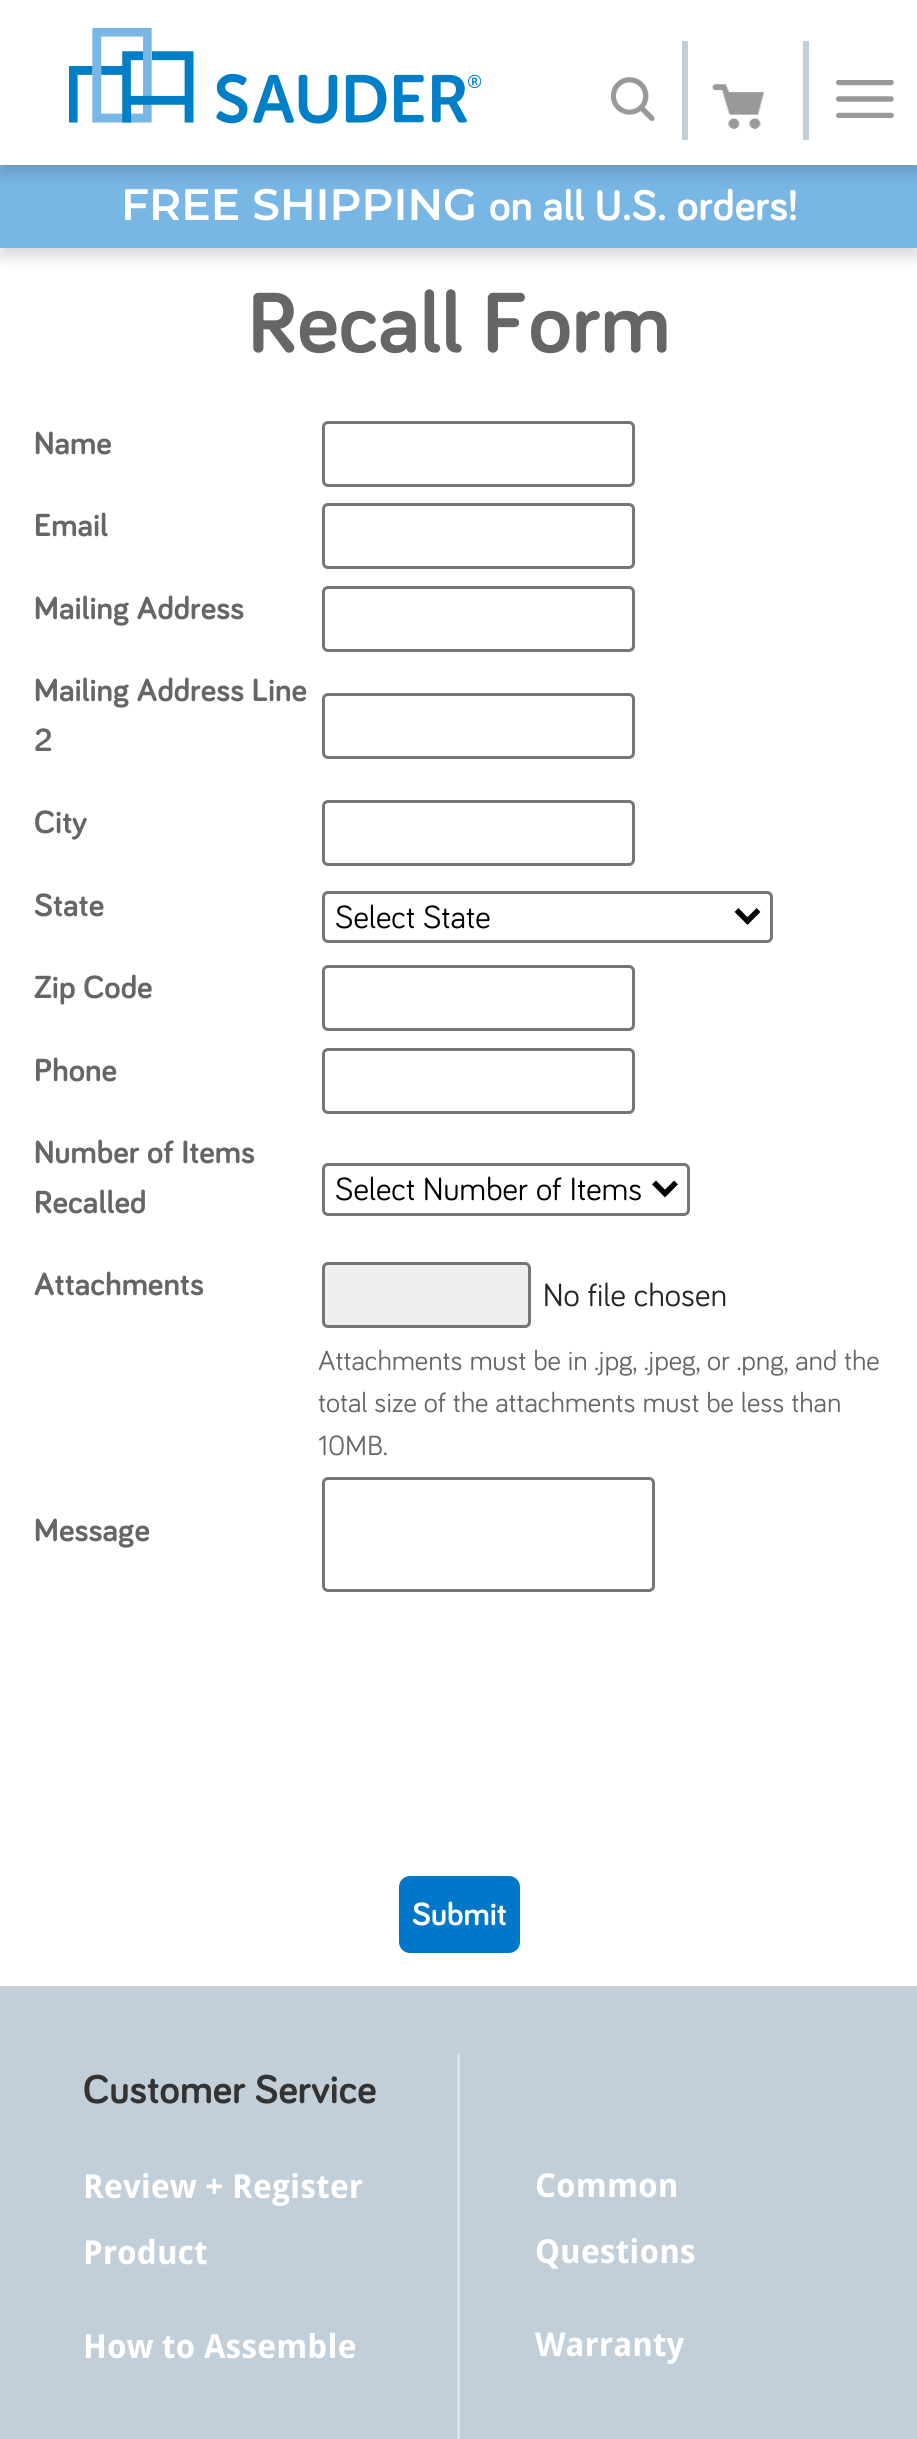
import math
import cairo

surface = cairo.ImageSurface(cairo.FORMAT_RGB24, 917, 2439)
cr = cairo.Context(surface)
options = cairo.FontOptions()
options.set_hint_metrics(cairo.HINT_METRICS_OFF)
options.set_hint_style(cairo.HINT_STYLE_NONE)
cr.set_font_options(options)
cr.set_miter_limit(4)


def rgb(code):
    cr.set_source_rgb(*(v / 255 for v in bytes.fromhex(code[-6:])))


def rrect(x, y, w, h, r):
    cr.new_sub_path()
    for i, (u, v) in enumerate([(x + w - r, y + h - r), (x + r, y + h - r), (x + r, y + r), (x + w - r, y + r)]):
        cr.arc(u, v, r, i * math.pi / 2, (i + 1) * math.pi / 2)
    cr.close_path()


def soft_shadow(x, y, w, h, r, blur, alpha):
    cr.push_group_with_content(cairo.CONTENT_ALPHA)
    cr.set_operator(cairo.OPERATOR_SOURCE)
    for i in range(15, -16, -2):
        e = blur * i / 6
        if min(w, h) + 2 * e > 0:
            cr.set_source_rgba(0, 0, 0, alpha * math.erfc((i - 1) / 8.5) / 2)
            rrect(x - e, y - e, w + 2 * e, h + 2 * e, max(0, min(r + e + blur * .6, min(w, h) / 2 + e)))
            cr.fill()
    cr.mask(cr.pop_group())


def image(path, x, y, w, h):
    cr.save()
    cr.set_source_surface(cairo.ImageSurface.create_from_png(path), x, y)
    cr.rectangle(x, y, w, h)
    cr.fill()
    cr.restore()


rgb("#ffffff")
cr.paint()
rgb("#000000")
soft_shadow(0, 173, 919, 83, 0, 8, 0.16)
rgb("#78b6e4")
cr.rectangle(0, 165, 917, 83)
cr.fill()
rgb("#000000")
soft_shadow(0, 8, 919, 165, 0, 8, 0.16)
rgb("#ffffff")
cr.rectangle(0, 0, 917, 165)
cr.fill()
image("img/1.png", 69, 28, 412, 96)
rgb("#c2cfd9")
cr.rectangle(682, 41, 6, 99)
cr.fill()
image("img/2.png", 611, 77, 44, 44)
cr.rectangle(803, 41, 6, 99)
cr.fill()
image("img/3.png", 712, 84, 53, 45)
image("img/4.png", 836, 80, 58, 38)
rrect(323.5, 422.5, 310, 63, 4.5)
rgb("#767676")
cr.set_line_width(3)
cr.stroke()
rrect(323.5, 504.5, 310, 63, 4.5)
cr.stroke()
rrect(323.5, 587.5, 310, 63, 4.5)
cr.stroke()
rrect(323.5, 694.5, 310, 63, 4.5)
cr.stroke()
rrect(323.5, 801.5, 310, 63, 4.5)
cr.stroke()
rrect(323.5, 892.5, 448, 49, 4.5)
cr.stroke()
cr.new_path()
cr.move_to(736.5, 910)
cr.line_to(747.5, 921)
cr.line_to(758.5, 910)
rgb("#000000")
cr.set_line_width(5.5)
cr.stroke()
rrect(323.5, 966.5, 310, 63, 4.5)
rgb("#767676")
cr.set_line_width(3)
cr.stroke()
rrect(323.5, 1049.5, 310, 63, 4.5)
cr.stroke()
rrect(323.5, 1164.5, 365, 50, 4.5)
cr.stroke()
cr.new_path()
cr.move_to(654, 1182.5)
cr.line_to(665, 1193.5)
cr.line_to(676, 1182.5)
rgb("#000000")
cr.set_line_width(5.5)
cr.stroke()
rgb("#efefef")
rrect(323.5, 1263.5, 206, 63, 4.5)
cr.fill_preserve()
rgb("#767676")
cr.set_line_width(3)
cr.stroke()
rrect(323.5, 1478.5, 330, 112, 4.5)
cr.stroke()
rgb("#0077c8")
rrect(399, 1876, 121, 77, 11)
cr.fill()
rgb("#c2cfd9")
cr.rectangle(0, 1986, 917, 453)
cr.fill()
rgb("#dee2e6")
cr.rectangle(457, 2054, 3, 385)
cr.fill()
cr.select_font_face("Montserrat SemiBold")
cr.set_font_size(44)
rgb("#ffffff")
cr.move_to(121, 220)
cr.show_text("FREE SHIPPING")
cr.select_font_face("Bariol", cairo.FONT_SLANT_NORMAL, cairo.FONT_WEIGHT_BOLD)
cr.move_to(489, 220)
cr.show_text("on all U.S. orders!")
cr.set_font_size(88)
rgb("#666666")
cr.move_to(248, 352)
cr.show_text("Recall Form")
cr.set_font_size(33)
for x, y, s in [
    (34, 454, "Name"),
    (34, 536, "Email"),
    (34, 619, "Mailing Address"),
    (34, 701, "Mailing Address Line"),
    (34, 751, "2"),
    (34, 833, "City"),
    (34, 916, "State"),
]:
    cr.move_to(x, y)
    cr.show_text(s)
cr.select_font_face("Bariol")
rgb("#000000")
cr.move_to(335, 928)
cr.show_text("Select State")
cr.select_font_face("Bariol", cairo.FONT_SLANT_NORMAL, cairo.FONT_WEIGHT_BOLD)
rgb("#666666")
for x, y, s in [
    (34, 998, "Zip Code"),
    (34, 1081, "Phone"),
    (34, 1163, "Number of Items"),
    (34, 1213, "Recalled"),
]:
    cr.move_to(x, y)
    cr.show_text(s)
cr.select_font_face("Bariol")
rgb("#000000")
cr.move_to(335, 1200)
cr.show_text("Select Number of Items")
cr.select_font_face("Bariol", cairo.FONT_SLANT_NORMAL, cairo.FONT_WEIGHT_BOLD)
rgb("#666666")
cr.move_to(34, 1295)
cr.show_text("Attachments")
cr.select_font_face("Bariol")
rgb("#212529")
cr.move_to(543, 1306)
cr.show_text("No file chosen")
cr.set_font_size(28.6)
rgb("#666666")
for x, y, s in [
    (318, 1370, "Attachments must be in .jpg, .jpeg, or .png, and the"),
    (318, 1412, "total size of the attachments must be less than"),
    (318, 1455, "10MB."),
]:
    cr.move_to(x, y)
    cr.show_text(s)
cr.select_font_face("Bariol", cairo.FONT_SLANT_NORMAL, cairo.FONT_WEIGHT_BOLD)
cr.set_font_size(33)
cr.move_to(34, 1541)
cr.show_text("Message")
rgb("#ffffff")
cr.move_to(412, 1925)
cr.show_text("Submit")
cr.set_font_size(41.25)
rgb("#333333")
cr.move_to(83, 2103)
cr.show_text("Customer Service")
cr.select_font_face("Droid Sans", cairo.FONT_SLANT_NORMAL, cairo.FONT_WEIGHT_BOLD)
cr.set_font_size(33)
rgb("#ffffff")
for x, y, s in [
    (83, 2198, "Review + Register"),
    (83, 2264, "Product"),
    (83, 2358, "How to Assemble"),
    (535, 2197, "Common"),
    (535, 2263, "Questions"),
    (535, 2356, "Warranty"),
]:
    cr.move_to(x, y)
    cr.show_text(s)
surface.write_to_png("page.png")
